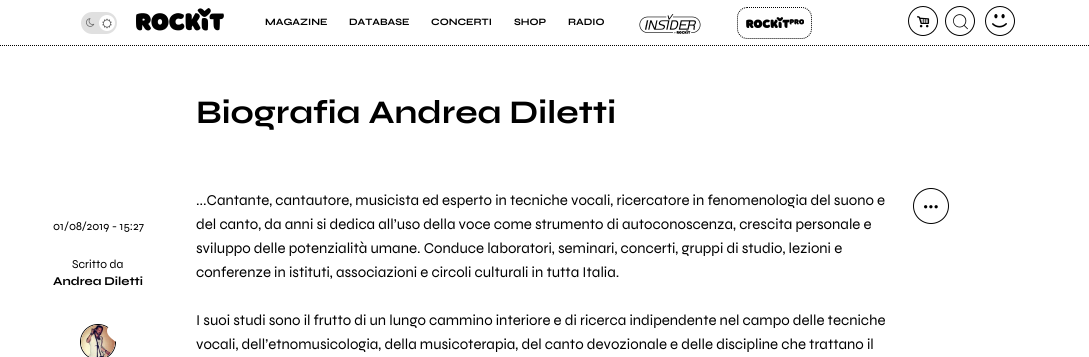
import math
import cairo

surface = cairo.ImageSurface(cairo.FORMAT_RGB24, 1089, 357)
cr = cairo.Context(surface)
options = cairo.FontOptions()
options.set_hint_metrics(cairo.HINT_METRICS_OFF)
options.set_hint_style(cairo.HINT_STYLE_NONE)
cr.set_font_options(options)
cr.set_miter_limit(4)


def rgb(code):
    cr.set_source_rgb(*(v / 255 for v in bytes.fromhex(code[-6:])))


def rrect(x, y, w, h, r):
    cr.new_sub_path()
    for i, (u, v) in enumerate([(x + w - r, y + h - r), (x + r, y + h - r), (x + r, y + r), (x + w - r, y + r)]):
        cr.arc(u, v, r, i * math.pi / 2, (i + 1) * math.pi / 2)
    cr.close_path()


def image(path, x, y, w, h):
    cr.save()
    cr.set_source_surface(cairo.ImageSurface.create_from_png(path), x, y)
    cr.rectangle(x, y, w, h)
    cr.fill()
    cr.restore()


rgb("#ffffff")
cr.paint()
cr.new_path()
cr.move_to(0, 45.5)
cr.line_to(1089, 45.5)
rgb("#000000")
cr.set_line_width(1)
cr.set_dash([1, 1])
cr.stroke()
image("img/1.png", 136, 8, 88, 23)
cr.arc(923, 21, 14.5, 0, 2 * math.pi)
cr.set_dash([])
cr.stroke()
image("img/2.png", 917, 16, 13, 12)
cr.arc(960, 21, 14.5, 0, 2 * math.pi)
cr.stroke()
image("img/3.png", 953, 14, 15, 16)
image("img/4.png", 992, 14, 15, 14)
cr.arc(1000, 21, 14.5, 0, 2 * math.pi)
cr.stroke()
rgb("#e0e0e0")
rrect(81, 12, 36, 22, 11)
cr.fill()
rgb("#ffffff")
cr.arc(107, 23, 8, 0, 2 * math.pi)
cr.fill()
image("img/5.png", 86, 18, 9, 9)
image("img/6.png", 102, 18, 10, 11)
image("img/7.png", 639, 14, 62, 20)
image("img/8.png", 746, 17, 58, 11)
cr.new_path()
cr.move_to(747, 7.5)
cr.line_to(802, 7.5)
cr.curve_to(807, 7.5, 811.5, 12, 811.5, 17)
cr.line_to(811.5, 29)
cr.curve_to(811.5, 34, 807, 38.5, 802, 38.5)
cr.line_to(747, 38.5)
cr.curve_to(742, 38.5, 737.5, 34, 737.5, 29)
cr.line_to(737.5, 17)
cr.curve_to(737.5, 12, 742, 7.5, 747, 7.5)
cr.close_path()
rgb("#000000")
cr.set_dash([1, 1])
cr.stroke()
cr.arc(98, 342, 17.5, 0, 2 * math.pi)
cr.set_dash([])
cr.stroke()
rgb("#ffffff")
cr.arc(98, 342, 17, 0, 2 * math.pi)
cr.fill()
image("img/9.png", 81, 325, 34, 32)
image("img/10.png", 107, 327, 9, 15)
cr.arc(931, 206, 17.5, 0, 2 * math.pi)
rgb("#000000")
cr.stroke()
image("img/11.png", 924, 205, 14, 4)
cr.select_font_face("Syne", cairo.FONT_SLANT_NORMAL, cairo.FONT_WEIGHT_BOLD)
cr.set_font_size(9.75)
for x, y, s in [
    (265, 25, "MAGAZINE"),
    (349, 25, "DATABASE"),
    (431, 25, "CONCERTI"),
    (514, 25, "SHOP"),
    (568, 25, "RADIO"),
]:
    cr.move_to(x, y)
    cr.show_text(s)
cr.set_font_size(33)
cr.move_to(196, 123)
cr.show_text("Biografia Andrea Diletti")
cr.select_font_face("Syne")
cr.set_font_size(12)
cr.move_to(53, 230)
cr.show_text("01/08/2019 - 15:27")
cr.move_to(72, 268)
cr.show_text("Scritto da")
cr.select_font_face("Syne", cairo.FONT_SLANT_NORMAL, cairo.FONT_WEIGHT_BOLD)
cr.move_to(53, 285)
cr.show_text("Andrea Diletti")
cr.select_font_face("Syne")
cr.set_font_size(15)
for x, y, s in [
    (196, 205, "...Cantante, cantautore, musicista ed esperto in tecniche vocali, ricercatore in fenomenologia del suono e"),
    (196, 229, "del canto, da anni si dedica all’uso della voce come strumento di autoconoscenza, crescita personale e"),
    (196, 253, "sviluppo delle potenzialità umane. Conduce laboratori, seminari, concerti, gruppi di studio, lezioni e"),
    (196, 277, "conferenze in istituti, associazioni e circoli culturali in tutta Italia."),
    (196, 325, "I suoi studi sono il frutto di un lungo cammino interiore e di ricerca indipendente nel campo delle tecniche"),
    (196, 349, "vocali, dell’etnomusicologia, della musicoterapia, del canto devozionale e delle discipline che trattano il"),
]:
    cr.move_to(x, y)
    cr.show_text(s)
surface.write_to_png("page.png")
